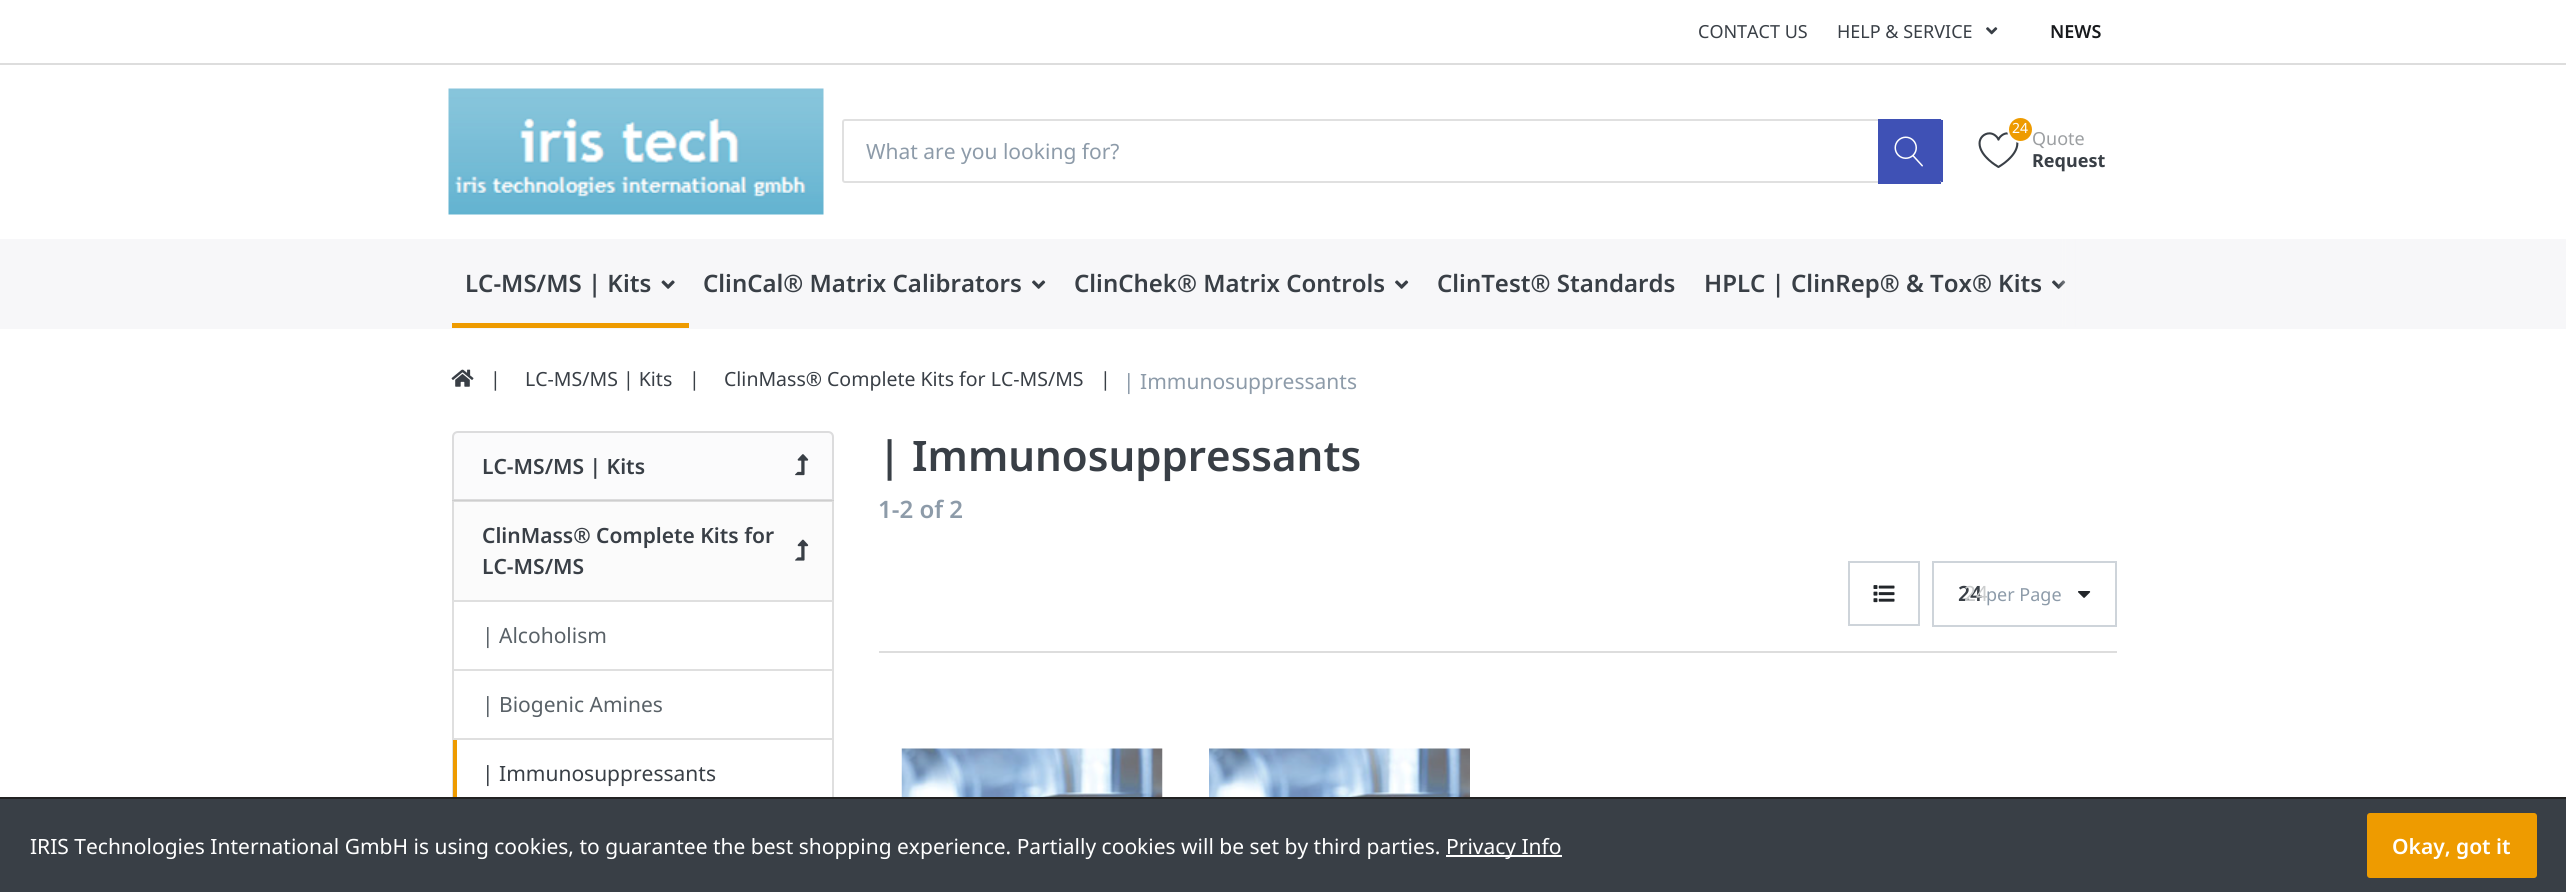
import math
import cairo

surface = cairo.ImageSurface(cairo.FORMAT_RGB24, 2566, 892)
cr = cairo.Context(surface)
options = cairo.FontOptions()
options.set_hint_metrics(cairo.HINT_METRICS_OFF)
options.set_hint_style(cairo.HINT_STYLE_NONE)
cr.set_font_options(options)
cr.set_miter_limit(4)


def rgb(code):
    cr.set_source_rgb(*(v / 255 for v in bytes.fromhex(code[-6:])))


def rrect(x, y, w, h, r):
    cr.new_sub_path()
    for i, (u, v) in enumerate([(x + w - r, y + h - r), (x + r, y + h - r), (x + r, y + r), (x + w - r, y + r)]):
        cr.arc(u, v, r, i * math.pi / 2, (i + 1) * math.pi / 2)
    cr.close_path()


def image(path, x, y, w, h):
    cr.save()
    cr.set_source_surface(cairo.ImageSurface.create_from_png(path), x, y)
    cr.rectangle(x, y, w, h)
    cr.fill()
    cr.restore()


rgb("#ffffff")
cr.paint()
rgb("#dddddd")
cr.rectangle(0, 63, 2566, 2)
cr.fill()
image("img/1.png", 1986, 27, 12, 8)
image("img/2.png", 448, 88, 376, 127)
rrect(843, 120, 1099, 62, 2)
rgb("#e0e0e0")
cr.stroke()
rgb("#3f51b5")
cr.new_path()
cr.move_to(1878, 120)
cr.line_to(1939.5, 120)
cr.curve_to(1940.5, 120, 1941, 120.5, 1941, 121.5)
cr.line_to(1941, 180.5)
cr.curve_to(1941, 181.5, 1940.5, 182, 1939.5, 182)
cr.line_to(1878, 182)
cr.close_path()
cr.fill()
for x, y, w, h, color in [
    (1878, 119, 63, 2, "#3f51b5"),
    (1941, 120, 2, 62, "#3f51b5"),
    (1878, 182, 63, 2, "#3f51b5"),
]:
    rgb(color)
    cr.rectangle(x, y, w, h)
    cr.fill()
image("img/3.png", 1894, 136, 29, 31)
image("img/4.png", 1978, 132, 41, 36)
rgb("#ee9b00")
cr.arc(2020.5, 129.5, 12.5, 0, 2 * math.pi)
cr.fill_preserve()
rgb("#ffffff")
cr.stroke()
rgb("#f7f7f9")
cr.rectangle(0, 239, 2566, 90)
cr.fill()
image("img/5.png", 661, 280, 14, 9)
rgb("#ee9b00")
cr.rectangle(452, 323, 237, 5)
cr.fill()
image("img/6.png", 1032, 280, 14, 9)
image("img/6.png", 1395, 280, 14, 9)
image("img/6.png", 2052, 280, 14, 9)
gradient = cairo.LinearGradient(2057, 283, 2117, 283)
gradient.add_color_stop_rgba(0, 0.969, 0.969, 0.976, 0)
gradient.add_color_stop_rgba(0.4, 0.969, 0.969, 0.976, 1)
gradient.add_color_stop_rgba(1, 0.969, 0.969, 0.976, 1)
cr.set_source(gradient)
rrect(2057, 239, 60, 88, 3)
cr.fill()
image("img/7.png", 451, 369, 23, 18)
rgb("#fbfbfc")
cr.new_path()
cr.move_to(458, 432)
cr.line_to(828, 432)
cr.curve_to(831, 432, 833, 434, 833, 437)
cr.line_to(833, 500)
cr.line_to(453, 500)
cr.line_to(453, 437)
cr.curve_to(453, 434, 455, 432, 458, 432)
cr.close_path()
cr.fill_preserve()
rgb("#dcdcdd")
cr.stroke()
image("img/8.png", 795, 454, 14, 22)
cr.set_source_rgba(0.969, 0.969, 0.976, 0.5)
cr.rectangle(452, 500, 382, 100)
cr.fill()
cr.rectangle(453, 501, 380, 100)
cr.set_source_rgba(0, 0, 0, 0.12)
cr.stroke()
image("img/9.png", 795, 539, 14, 22)
cr.rectangle(453, 601, 380, 69)
rgb("#dfdfdf")
cr.stroke()
cr.rectangle(453, 670, 380, 69)
cr.stroke()
cr.rectangle(453, 739, 380, 69)
cr.stroke()
rgb("#ee9b00")
cr.rectangle(453, 740, 4, 57)
cr.fill()
rgb("#dddddd")
cr.rectangle(879, 651, 1238, 2)
cr.fill()
cr.rectangle(1849, 562, 70, 63)
rgb("#ced4da")
cr.stroke()
image("img/10.png", 1873, 585, 22, 18)
cr.rectangle(1933, 562, 183, 64)
cr.stroke()
image("img/11.png", 2078, 591, 13, 7)
image("img/12.png", 901, 748, 262, 49)
image("img/13.png", 1209, 748, 261, 49)
for x, y, w, h, color in [
    (0, 799, 2566, 93, "#393f46"),
    (0, 797, 2566, 2, "#222222"),
    (1446, 855, 116, 2, "#ffffff"),
]:
    rgb(color)
    cr.rectangle(x, y, w, h)
    cr.fill()
rgb("#ee9b00")
rrect(2368, 814, 168, 63, 2)
cr.fill_preserve()
cr.stroke()
cr.select_font_face("Noto Sans")
cr.set_font_size(18)
rgb("#393f46")
cr.move_to(1698, 38)
cr.show_text("CONTACT US")
cr.move_to(1837, 38)
cr.show_text("HELP & SERVICE")
cr.select_font_face("Noto Sans SemiBold")
rgb("#17191c")
cr.move_to(2050, 38)
cr.show_text("NEWS")
cr.select_font_face("Noto Sans")
cr.set_font_size(21)
rgb("#8d9ba9")
cr.move_to(866, 159)
cr.show_text("What are you looking for?")
cr.set_font_size(14)
rgb("#ffffff")
cr.move_to(2012, 133)
cr.show_text("24")
cr.set_font_size(18)
rgb("#9c9fa2")
cr.move_to(2032, 145)
cr.show_text("Quote")
cr.select_font_face("Noto Sans", cairo.FONT_SLANT_NORMAL, cairo.FONT_WEIGHT_BOLD)
rgb("#393f46")
cr.move_to(2032, 167)
cr.show_text("Request")
cr.select_font_face("Noto Sans SemiBold")
cr.set_font_size(24)
for x, y, s in [
    (465, 292, "LC-MS/MS | Kits"),
    (703, 292, "ClinCal® Matrix Calibrators"),
    (1074, 292, "ClinChek® Matrix Controls"),
    (1437, 292, "ClinTest® Standards"),
    (1704, 292, "HPLC | ClinRep® & Tox® Kits"),
]:
    cr.move_to(x, y)
    cr.show_text(s)
cr.select_font_face("Noto Sans")
cr.set_font_size(19.5)
for x, y, s in [
    (490, 386, "|"),
    (525, 386, "LC-MS/MS | Kits"),
    (689, 386, "|"),
    (724, 386, "ClinMass® Complete Kits for LC-MS/MS"),
    (1100, 386, "|"),
]:
    cr.move_to(x, y)
    cr.show_text(s)
cr.set_font_size(21)
rgb("#8d9ba9")
cr.move_to(1123, 389)
cr.show_text("| Immunosuppressants")
cr.select_font_face("Noto Sans SemiBold")
rgb("#393f46")
for x, y, s in [
    (482, 474, "LC-MS/MS | Kits"),
    (482, 543, "ClinMass® Complete Kits for"),
    (482, 574, "LC-MS/MS"),
]:
    cr.move_to(x, y)
    cr.show_text(s)
cr.select_font_face("Noto Sans")
rgb("#596167")
cr.move_to(482, 643)
cr.show_text("| Alcoholism")
cr.move_to(482, 712)
cr.show_text("| Biogenic Amines")
rgb("#393f46")
cr.move_to(482, 781)
cr.show_text("| Immunosuppressants")
cr.select_font_face("Noto Sans SemiBold")
cr.set_font_size(42)
cr.move_to(878, 471)
cr.show_text("| Immunosuppressants")
cr.set_font_size(24)
rgb("#8d9ba9")
cr.move_to(878, 518)
cr.show_text("1-2 of 2")
cr.set_font_size(21)
rgb("#393f46")
cr.move_to(1958, 601)
cr.show_text("24")
cr.select_font_face("Noto Sans")
cr.set_font_size(18)
rgb("#8d9ba9")
cr.move_to(1986, 601)
cr.show_text("per Page")
cr.set_font_size(21)
rgb("#cbcdce")
cr.move_to(1964, 601)
cr.show_text("24")
rgb("#ffffff")
cr.move_to(30, 854)
cr.show_text("IRIS Technologies International GmbH is using cookies, to guarantee the best shopping experience. Partially cookies will be set by third parties.")
cr.move_to(1446, 854)
cr.show_text("Privacy Info")
cr.select_font_face("Noto Sans SemiBold")
cr.move_to(2392, 854)
cr.show_text("Okay, got it")
surface.write_to_png("page.png")
